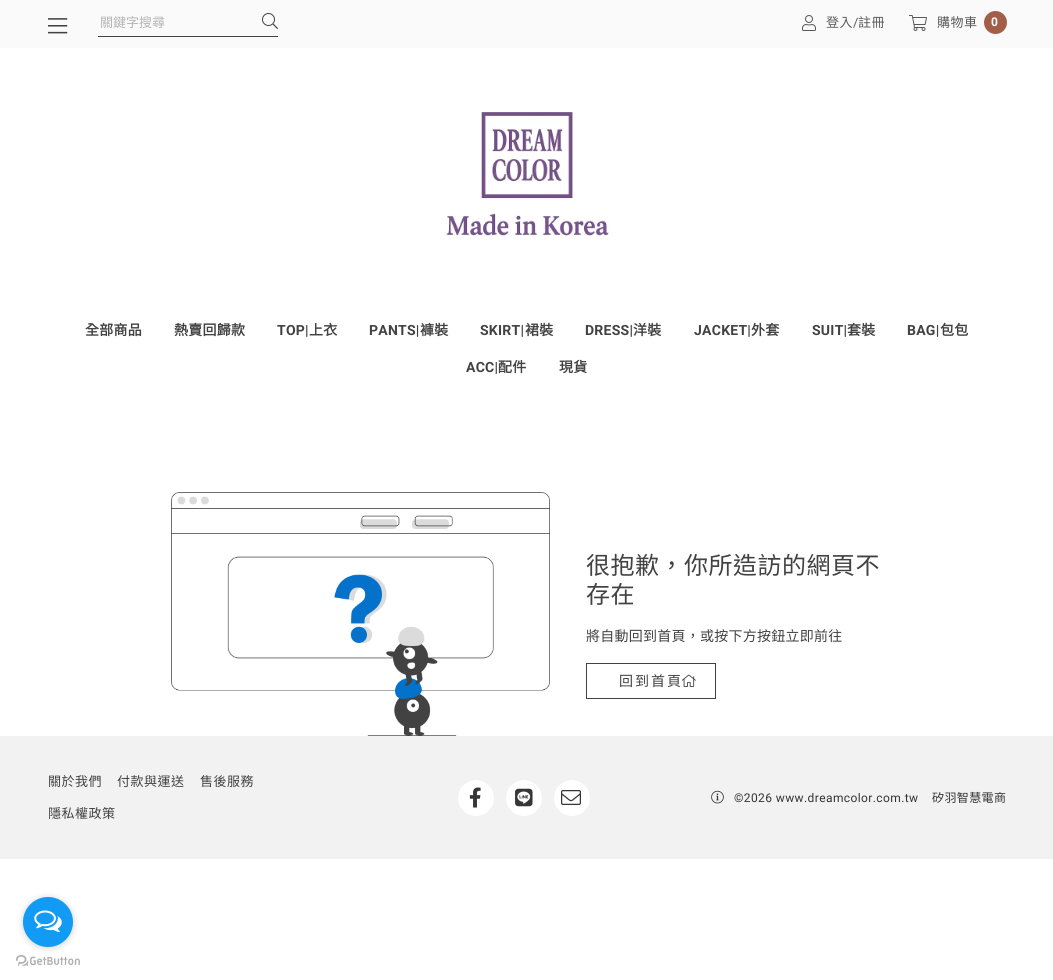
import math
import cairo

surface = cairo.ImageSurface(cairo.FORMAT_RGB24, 1053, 980)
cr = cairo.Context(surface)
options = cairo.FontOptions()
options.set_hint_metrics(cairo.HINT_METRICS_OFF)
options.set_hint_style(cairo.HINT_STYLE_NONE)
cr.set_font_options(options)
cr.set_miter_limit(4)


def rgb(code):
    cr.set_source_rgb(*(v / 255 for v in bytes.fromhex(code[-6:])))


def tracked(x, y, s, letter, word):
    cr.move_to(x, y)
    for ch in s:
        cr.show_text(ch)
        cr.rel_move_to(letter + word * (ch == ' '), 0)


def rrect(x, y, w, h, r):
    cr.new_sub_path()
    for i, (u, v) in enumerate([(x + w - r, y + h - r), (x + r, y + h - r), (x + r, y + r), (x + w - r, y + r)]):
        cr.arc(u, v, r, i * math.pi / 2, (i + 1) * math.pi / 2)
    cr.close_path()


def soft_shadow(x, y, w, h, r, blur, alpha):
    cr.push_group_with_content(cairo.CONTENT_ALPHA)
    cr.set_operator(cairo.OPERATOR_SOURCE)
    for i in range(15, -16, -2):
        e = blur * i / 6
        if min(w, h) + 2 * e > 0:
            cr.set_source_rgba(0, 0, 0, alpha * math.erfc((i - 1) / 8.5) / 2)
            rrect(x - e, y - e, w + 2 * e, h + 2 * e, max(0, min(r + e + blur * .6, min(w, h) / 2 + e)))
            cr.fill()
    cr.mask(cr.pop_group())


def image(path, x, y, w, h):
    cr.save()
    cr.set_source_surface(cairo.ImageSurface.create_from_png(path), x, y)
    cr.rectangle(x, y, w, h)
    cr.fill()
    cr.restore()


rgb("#ffffff")
cr.paint()
rgb("#fafafa")
cr.rectangle(0, 0, 1053, 48)
cr.fill()
image("img/1.png", 48, 18, 20, 16)
rgb("#424242")
cr.rectangle(98, 36, 180, 1)
cr.fill()
image("img/2.png", 262, 13, 16, 16)
image("img/3.png", 802, 15, 14, 16)
image("img/4.png", 909, 15, 18, 16)
rgb("#a35e47")
cr.arc(995.5, 22.5, 11.5, 0, 2 * math.pi)
cr.fill()
image("img/5.png", 446, 112, 163, 124)
image("img/6.png", 171, 492, 379, 244)
cr.rectangle(586.5, 663.5, 129, 35)
rgb("#424242")
cr.set_line_width(1)
cr.stroke()
image("img/7.png", 681, 674, 15, 13)
rgb("#f2f2f2")
cr.rectangle(0, 736, 1053, 123)
cr.fill()
rgb("#ffffff")
cr.arc(476, 798, 18, 0, 2 * math.pi)
cr.fill()
image("img/8.png", 469, 787, 12, 21)
cr.arc(524, 798, 18, 0, 2 * math.pi)
cr.fill()
image("img/9.png", 515, 788, 18, 19)
cr.arc(572, 798, 18, 0, 2 * math.pi)
cr.fill()
image("img/10.png", 561, 790, 20, 15)
image("img/11.png", 711, 790, 13, 14)
image("img/13.png", 16, 955, 64, 11)
rgb("#888888")
soft_shadow(23, 898, 50, 50, 25, 3.5, 0.4)
rgb("#129bf4")
cr.arc(48, 922, 25, 0, 2 * math.pi)
cr.fill()
image("img/12.png", 34, 910, 28, 23)
cr.select_font_face("Noto Sans CJK TC")
cr.set_font_size(13)
rgb("#b4b4b4")
cr.move_to(100, 27)
cr.show_text("關鍵字搜尋")
rgb("#5a5a5a")
tracked(826, 27, "登入", 0.5, 0)
cr.select_font_face("Roboto")
tracked(853, 27, "/", 0.5, 0)
cr.select_font_face("Noto Sans CJK TC")
tracked(858, 27, "註冊", 0.5, 0)
tracked(937, 27, "購物車", 0.5, 0)
cr.select_font_face("Roboto", cairo.FONT_SLANT_NORMAL, cairo.FONT_WEIGHT_BOLD)
cr.set_font_size(12)
rgb("#ffffff")
tracked(991, 26, "0", 0.5, 0)
cr.select_font_face("Noto Sans CJK TC", cairo.FONT_SLANT_NORMAL, cairo.FONT_WEIGHT_BOLD)
cr.set_font_size(14)
rgb("#424242")
tracked(85, 335, "全部商品", 0.25, 0)
tracked(174, 335, "熱賣回歸款", 0.25, 0)
cr.select_font_face("Roboto", cairo.FONT_SLANT_NORMAL, cairo.FONT_WEIGHT_BOLD)
tracked(277, 335, "TOP|", 0.25, 0)
cr.select_font_face("Noto Sans CJK TC", cairo.FONT_SLANT_NORMAL, cairo.FONT_WEIGHT_BOLD)
tracked(309, 335, "上衣", 0.25, 0)
cr.select_font_face("Roboto", cairo.FONT_SLANT_NORMAL, cairo.FONT_WEIGHT_BOLD)
tracked(369, 335, "PANTS|", 0.25, 0)
cr.select_font_face("Noto Sans CJK TC", cairo.FONT_SLANT_NORMAL, cairo.FONT_WEIGHT_BOLD)
tracked(420, 335, "褲裝", 0.25, 0)
cr.select_font_face("Roboto", cairo.FONT_SLANT_NORMAL, cairo.FONT_WEIGHT_BOLD)
tracked(480, 335, "SKIRT|", 0.25, 0)
cr.select_font_face("Noto Sans CJK TC", cairo.FONT_SLANT_NORMAL, cairo.FONT_WEIGHT_BOLD)
tracked(525, 335, "裙裝", 0.25, 0)
cr.select_font_face("Roboto", cairo.FONT_SLANT_NORMAL, cairo.FONT_WEIGHT_BOLD)
tracked(585, 335, "DRESS|", 0.25, 0)
cr.select_font_face("Noto Sans CJK TC", cairo.FONT_SLANT_NORMAL, cairo.FONT_WEIGHT_BOLD)
tracked(633, 335, "洋裝", 0.25, 0)
cr.select_font_face("Roboto", cairo.FONT_SLANT_NORMAL, cairo.FONT_WEIGHT_BOLD)
tracked(694, 335, "JACKET|", 0.25, 0)
cr.select_font_face("Noto Sans CJK TC", cairo.FONT_SLANT_NORMAL, cairo.FONT_WEIGHT_BOLD)
tracked(751, 335, "外套", 0.25, 0)
cr.select_font_face("Roboto", cairo.FONT_SLANT_NORMAL, cairo.FONT_WEIGHT_BOLD)
tracked(812, 335, "SUIT|", 0.25, 0)
cr.select_font_face("Noto Sans CJK TC", cairo.FONT_SLANT_NORMAL, cairo.FONT_WEIGHT_BOLD)
tracked(847, 335, "套裝", 0.25, 0)
cr.select_font_face("Roboto", cairo.FONT_SLANT_NORMAL, cairo.FONT_WEIGHT_BOLD)
tracked(907, 335, "BAG|", 0.25, 0)
cr.select_font_face("Noto Sans CJK TC", cairo.FONT_SLANT_NORMAL, cairo.FONT_WEIGHT_BOLD)
tracked(940, 335, "包包", 0.25, 0)
cr.select_font_face("Roboto", cairo.FONT_SLANT_NORMAL, cairo.FONT_WEIGHT_BOLD)
tracked(466, 372, "ACC|", 0.25, 0)
cr.select_font_face("Noto Sans CJK TC", cairo.FONT_SLANT_NORMAL, cairo.FONT_WEIGHT_BOLD)
tracked(498, 372, "配件", 0.25, 0)
tracked(559, 372, "現貨", 0.25, 0)
cr.select_font_face("Noto Sans CJK TC")
cr.set_font_size(24)
tracked(586, 574, "很抱歉，你所造訪的網頁不", 0.5, 0)
tracked(586, 603, "存在", 0.5, 0)
cr.set_font_size(14)
tracked(586, 641, "將自動回到首頁，或按下方按鈕立即前往", 0.25, 0)
tracked(619, 686, "回到首頁", 2, 0)
cr.set_font_size(13)
for x, y, s in [
    (48, 786, "關於我們"),
    (117, 786, "付款與運送"),
    (200, 786, "售後服務"),
    (48, 818, "隱私權政策"),
]:
    tracked(x, y, s, 0.5, 0)
cr.select_font_face("Roboto")
cr.set_font_size(12)
rgb("#353434")
tracked(734, 802, "©2026 www.dreamcolor.com.tw", 0.4, 0)
cr.select_font_face("Noto Sans CJK TC")
tracked(932, 802, "矽羽智慧電商", 0.4, 0)
surface.write_to_png("page.png")
